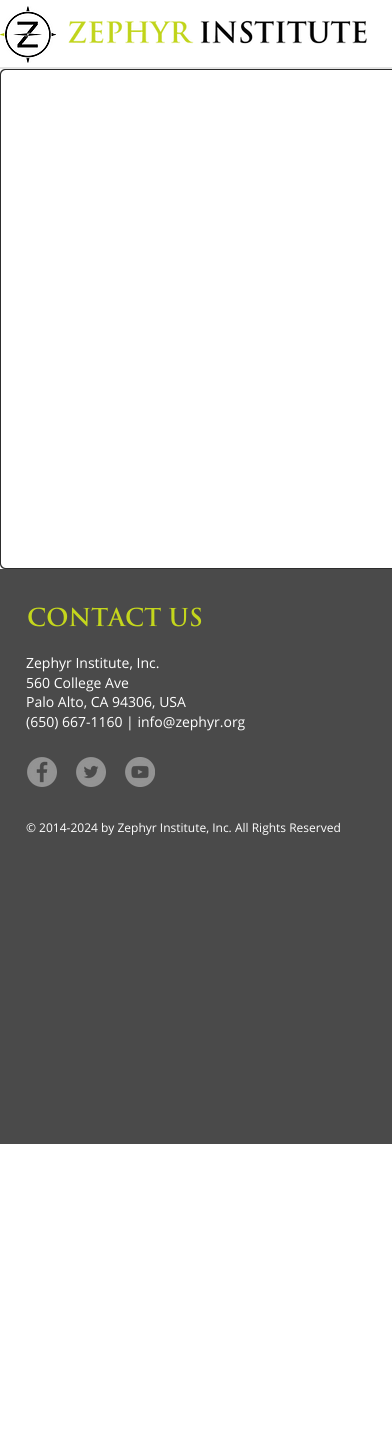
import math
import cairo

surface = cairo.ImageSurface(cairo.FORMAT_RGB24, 392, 1438)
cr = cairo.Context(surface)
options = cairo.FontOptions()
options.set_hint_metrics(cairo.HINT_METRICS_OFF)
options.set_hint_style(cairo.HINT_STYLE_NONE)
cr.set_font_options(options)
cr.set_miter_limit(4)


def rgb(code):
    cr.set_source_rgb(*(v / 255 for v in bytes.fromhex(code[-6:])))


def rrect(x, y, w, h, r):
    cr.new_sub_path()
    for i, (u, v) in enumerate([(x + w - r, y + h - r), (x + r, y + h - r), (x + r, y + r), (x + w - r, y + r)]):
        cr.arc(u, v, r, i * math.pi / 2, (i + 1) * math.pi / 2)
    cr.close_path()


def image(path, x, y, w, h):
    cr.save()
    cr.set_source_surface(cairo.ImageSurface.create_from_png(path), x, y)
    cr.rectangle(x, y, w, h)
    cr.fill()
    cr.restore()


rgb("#ffffff")
cr.paint()
image("img/1.png", 0, 6, 56, 57)
image("img/2.png", 68, 20, 299, 24)
rgb("#e4e4e4")
cr.rectangle(0, 67, 392, 2)
cr.fill()
rgb("#2d2d2d")
rrect(0, 69, 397, 500, 5)
cr.fill()
rgb("#ffffff")
rrect(1, 70, 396, 498, 5)
cr.fill()
rgb("#4a4a4a")
cr.rectangle(0, 569, 392, 575)
cr.fill()
image("img/3.png", 28, 607, 174, 20)
image("img/4.png", 27, 757, 30, 30)
image("img/5.png", 76, 757, 30, 30)
image("img/6.png", 125, 757, 30, 30)
cr.select_font_face("Open Sans")
cr.set_font_size(14)
rgb("#ffffff")
for x, y, s in [
    (26, 668, "Zephyr Institute, Inc."),
    (26, 688, "560 College Ave"),
    (26, 707, "Palo Alto, CA 94306, USA"),
    (26, 727, "(650) 667-1160 | info@zephyr.org"),
]:
    cr.move_to(x, y)
    cr.show_text(s)
cr.set_font_size(12)
cr.move_to(26, 832)
cr.show_text("© 2014-2024 by Zephyr Institute, Inc. All Rights Reserved")
surface.write_to_png("page.png")
